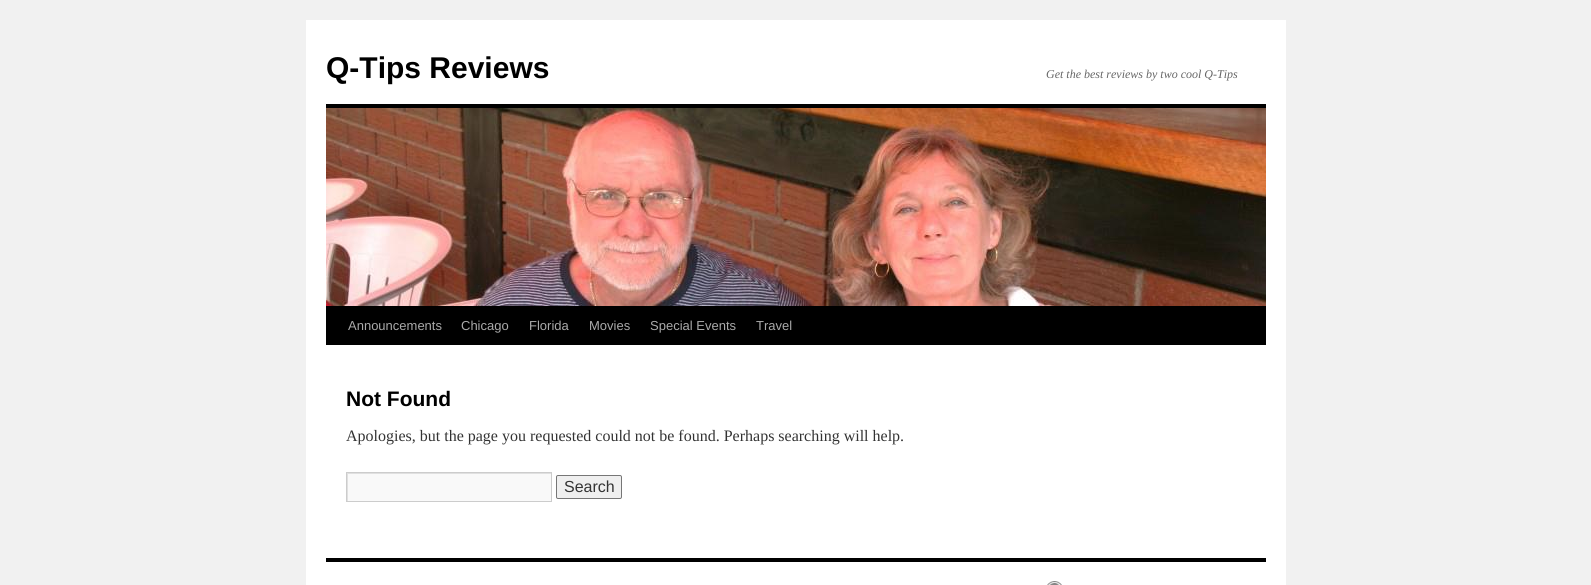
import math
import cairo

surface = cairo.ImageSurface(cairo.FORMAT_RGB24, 1591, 585)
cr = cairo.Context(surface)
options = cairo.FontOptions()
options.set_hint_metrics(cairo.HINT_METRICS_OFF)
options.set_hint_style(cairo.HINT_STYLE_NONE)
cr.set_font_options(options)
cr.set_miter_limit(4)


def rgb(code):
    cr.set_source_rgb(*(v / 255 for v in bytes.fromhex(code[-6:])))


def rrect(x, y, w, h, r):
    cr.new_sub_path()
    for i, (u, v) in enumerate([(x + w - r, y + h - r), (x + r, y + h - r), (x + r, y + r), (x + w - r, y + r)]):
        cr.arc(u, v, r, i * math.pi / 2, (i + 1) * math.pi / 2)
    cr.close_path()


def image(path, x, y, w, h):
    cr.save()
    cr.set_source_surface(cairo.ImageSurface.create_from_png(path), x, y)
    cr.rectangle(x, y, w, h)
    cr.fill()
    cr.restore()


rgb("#f1f1f1")
cr.paint()
for x, y, w, h, color in [
    (306, 20, 980, 565, "#ffffff"),
    (326, 104, 940, 4, "#000000"),
    (326, 306, 940, 39, "#000000"),
]:
    rgb(color)
    cr.rectangle(x, y, w, h)
    cr.fill()
image("img/1.png", 326, 108, 940, 198)
rgb("#f9f9f9")
cr.rectangle(348, 474, 203, 27)
cr.fill()
cr.save()
cr.rectangle(347, 473, 204, 28)
cr.clip()
rgb("#e0e0e0")
cr.set_fill_rule(cairo.FILL_RULE_EVEN_ODD)
cr.new_path()
cr.move_to(248, 374)
cr.line_to(650, 374)
cr.line_to(650, 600)
cr.line_to(248, 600)
cr.close_path()
cr.move_to(348, 474)
cr.line_to(552, 474)
cr.line_to(552, 502)
cr.line_to(348, 502)
cr.close_path()
cr.fill()
cr.restore()
cr.rectangle(346.5, 472.5, 205, 29)
rgb("#cccccc")
cr.set_line_width(1)
cr.stroke()
rgb("#efefef")
rrect(556.5, 475.5, 65, 23, 1.5)
cr.fill_preserve()
rgb("#767676")
cr.stroke()
rgb("#000000")
cr.rectangle(326, 558, 940, 4)
cr.fill()
image("img/2.png", 1047, 581, 15, 4)
cr.select_font_face("Liberation Sans", cairo.FONT_SLANT_NORMAL, cairo.FONT_WEIGHT_BOLD)
cr.set_font_size(30)
cr.move_to(326, 78)
cr.show_text("Q-Tips Reviews")
cr.select_font_face("Liberation Serif", cairo.FONT_SLANT_ITALIC)
cr.set_font_size(12)
rgb("#666666")
cr.move_to(1046, 78)
cr.show_text("Get the best reviews by two cool Q-Tips")
cr.select_font_face("Liberation Sans")
cr.set_font_size(13)
rgb("#aaaaaa")
for x, y, s in [
    (348, 330, "Announcements"),
    (461, 330, "Chicago"),
    (529, 330, "Florida"),
    (589, 330, "Movies"),
    (650, 330, "Special Events"),
    (756, 330, "Travel"),
]:
    cr.move_to(x, y)
    cr.show_text(s)
cr.select_font_face("Liberation Sans", cairo.FONT_SLANT_NORMAL, cairo.FONT_WEIGHT_BOLD)
cr.set_font_size(21)
rgb("#000000")
cr.move_to(346, 406)
cr.show_text("Not Found")
cr.select_font_face("Liberation Serif")
cr.set_font_size(16)
rgb("#333333")
cr.move_to(346, 441)
cr.show_text("Apologies, but the page you requested could not be found. Perhaps searching will help.")
cr.select_font_face("Liberation Sans")
cr.move_to(564, 492)
cr.show_text("Search")
surface.write_to_png("page.png")
